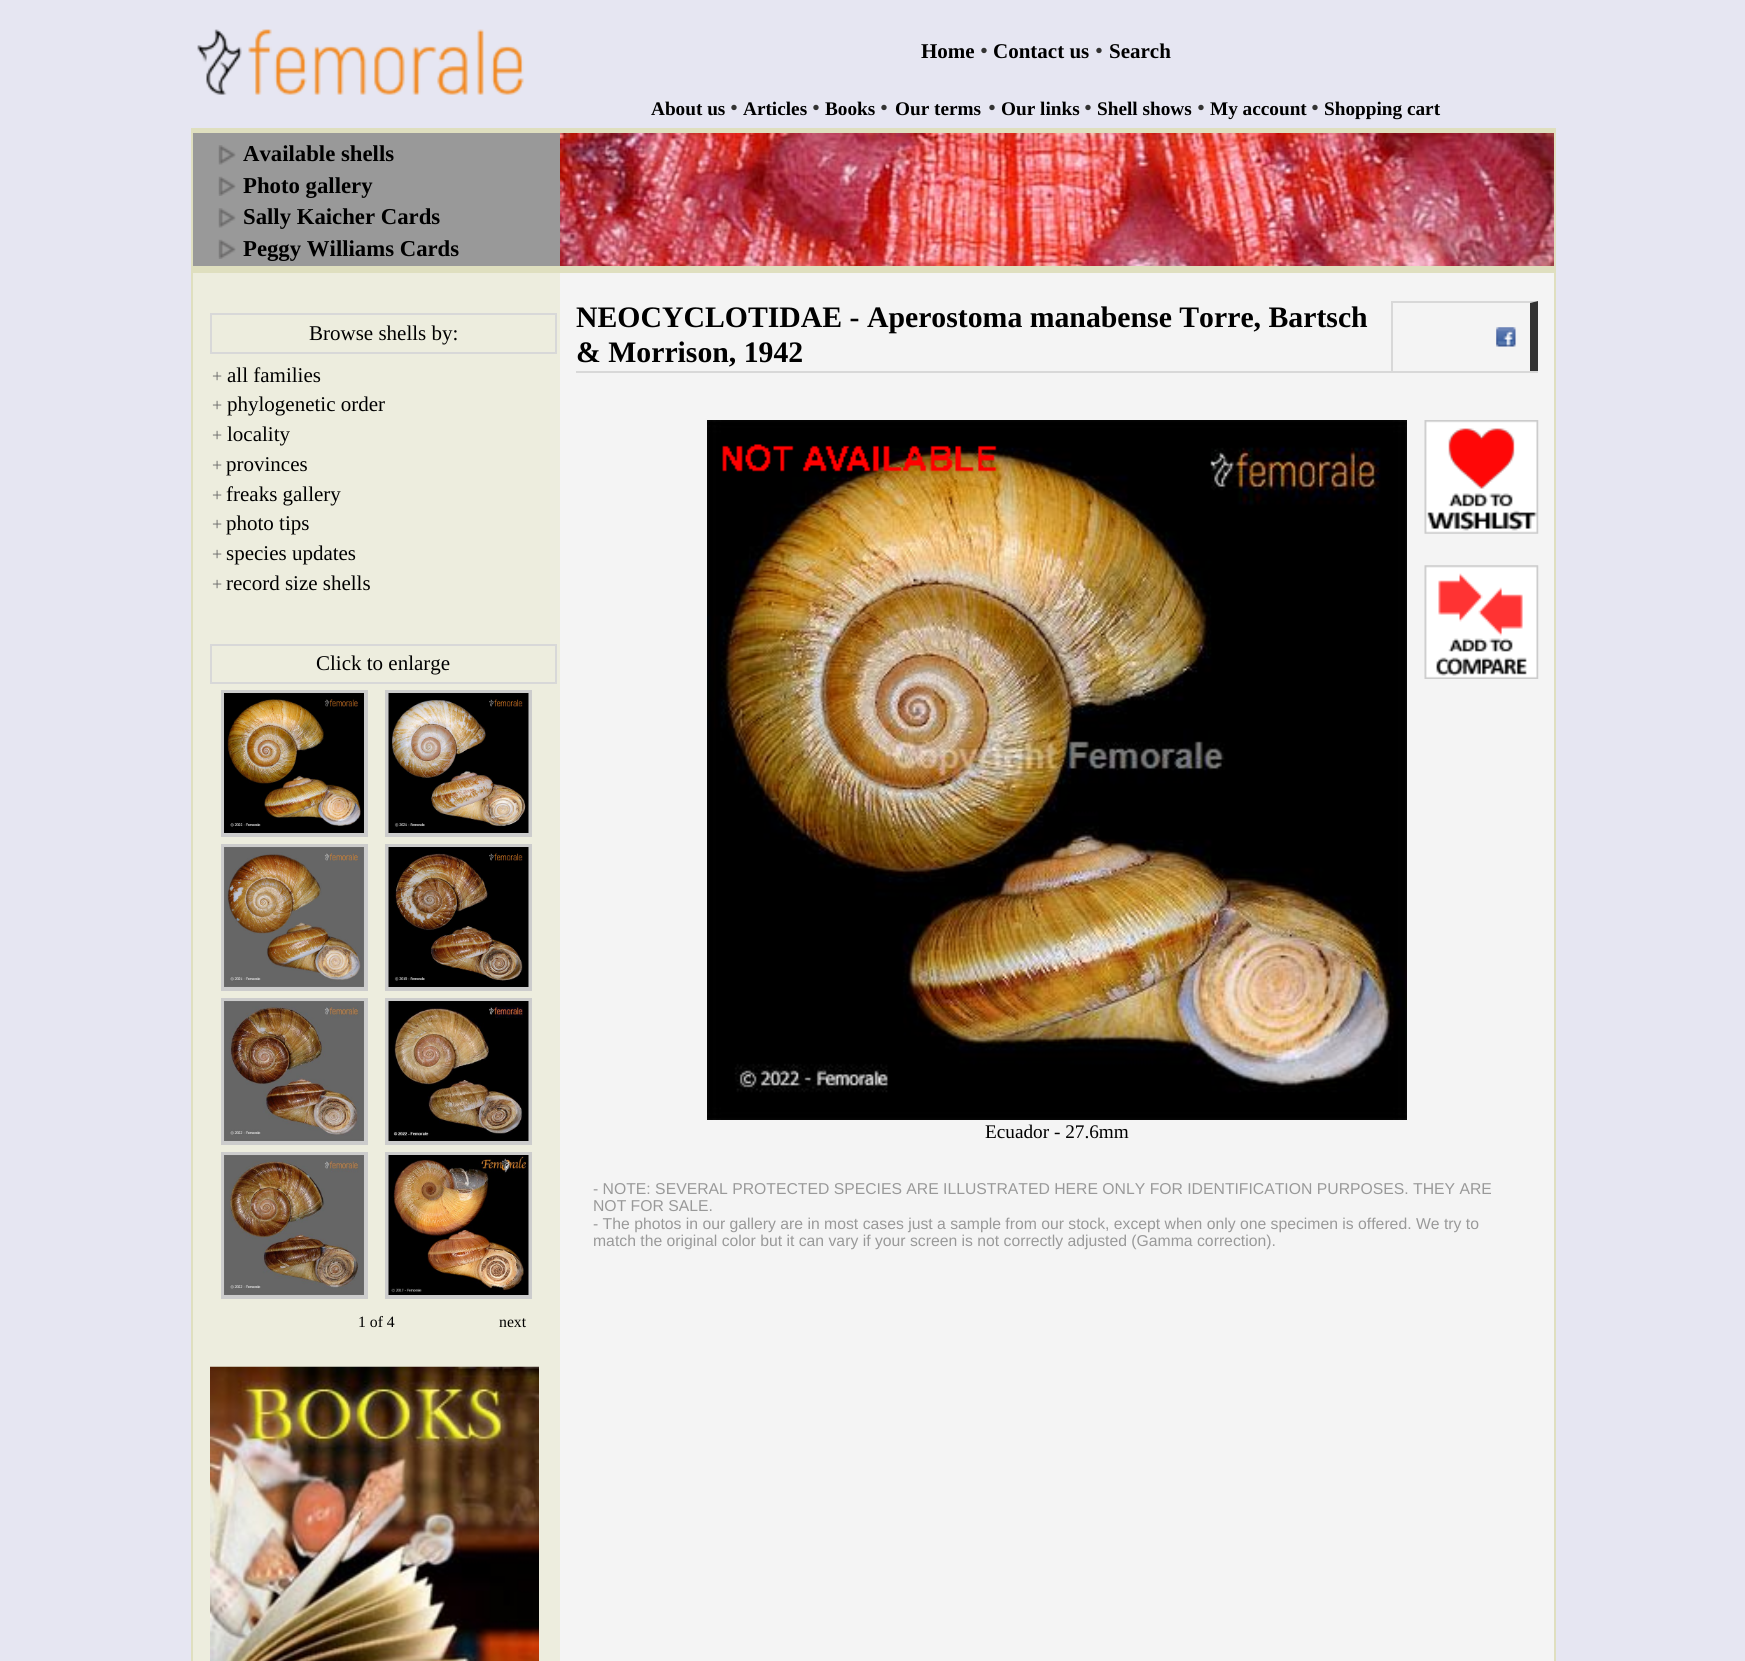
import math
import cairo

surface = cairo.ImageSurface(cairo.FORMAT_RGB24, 1745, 1661)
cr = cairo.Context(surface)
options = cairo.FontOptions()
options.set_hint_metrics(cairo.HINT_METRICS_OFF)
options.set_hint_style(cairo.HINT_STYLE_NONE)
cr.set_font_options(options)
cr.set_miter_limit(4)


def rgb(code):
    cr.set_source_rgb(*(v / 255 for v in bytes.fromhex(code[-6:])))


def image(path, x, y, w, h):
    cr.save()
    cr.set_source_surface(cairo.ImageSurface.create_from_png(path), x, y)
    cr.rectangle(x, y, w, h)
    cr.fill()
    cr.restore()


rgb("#e6e6f2")
cr.paint()
image("img/1.png", 197, 29, 327, 66)
for x, y, w, h, color in [
    (191, 128, 1365, 5, "#dfdfbf"),
    (1554, 128, 2, 1533, "#dfdfbf"),
    (191, 128, 2, 1533, "#dfdfbf"),
    (193, 133, 367, 133, "#999999"),
    (193, 266, 1361, 7, "#dfdfbf"),
]:
    rgb(color)
    cr.rectangle(x, y, w, h)
    cr.fill()
image("img/2.png", 218, 145, 18, 20)
image("img/3.png", 218, 176, 18, 20)
image("img/2.png", 218, 208, 18, 20)
image("img/3.png", 218, 239, 18, 20)
image("img/4.png", 560, 133, 994, 133)
rgb("#ededde")
cr.rectangle(193, 273, 367, 1388)
cr.fill()
cr.rectangle(211, 314, 345, 39)
rgb("#d8d8d8")
cr.stroke()
cr.rectangle(211, 645, 345, 38)
cr.stroke()
cr.rectangle(223, 692, 143, 143)
rgb("#cccccc")
cr.set_line_width(4)
cr.stroke()
image("img/5.png", 224, 693, 140, 140)
cr.rectangle(387, 692, 143, 143)
cr.stroke()
image("img/6.png", 388, 693, 141, 140)
cr.rectangle(223, 846, 143, 143)
cr.stroke()
image("img/7.png", 224, 847, 140, 140)
cr.rectangle(387, 846, 143, 143)
cr.stroke()
image("img/8.png", 388, 847, 141, 140)
cr.rectangle(223, 1000, 143, 143)
cr.stroke()
image("img/9.png", 224, 1001, 140, 140)
cr.rectangle(387, 1000, 143, 143)
cr.stroke()
image("img/10.png", 388, 1001, 141, 140)
cr.rectangle(223, 1154, 143, 143)
cr.stroke()
image("img/11.png", 224, 1155, 140, 140)
cr.rectangle(387, 1154, 143, 143)
cr.stroke()
image("img/12.png", 388, 1155, 141, 140)
image("img/13.png", 210, 1366, 329, 295)
rgb("#f4f4f4")
cr.rectangle(560, 273, 994, 1388)
cr.fill()
rgb("#d8d8d8")
cr.rectangle(576, 371, 962, 2)
cr.fill()
cr.new_path()
cr.move_to(1391, 301)
cr.line_to(1538, 301)
cr.line_to(1530, 303)
cr.line_to(1393, 303)
cr.close_path()
cr.fill()
rgb("#333333")
cr.new_path()
cr.move_to(1538, 301)
cr.line_to(1538, 371)
cr.line_to(1530, 371)
cr.line_to(1530, 303)
cr.close_path()
cr.fill()
rgb("#d8d8d8")
cr.rectangle(1391, 301, 2, 70)
cr.fill()
image("img/14.png", 1496, 327, 20, 20)
image("img/15.png", 1424, 420, 115, 114)
image("img/16.png", 1424, 565, 115, 114)
image("img/17.png", 707, 420, 700, 700)
image("img/18.png", 722, 444, 275, 28)
cr.select_font_face("Liberation Serif", cairo.FONT_SLANT_NORMAL, cairo.FONT_WEIGHT_BOLD)
cr.set_font_size(21)
rgb("#000000")
cr.move_to(921, 58)
cr.show_text("Home")
cr.select_font_face("Liberation Serif")
cr.set_font_size(22.75)
rgb("#333333")
cr.move_to(980, 58)
cr.show_text("•")
cr.select_font_face("Liberation Serif", cairo.FONT_SLANT_NORMAL, cairo.FONT_WEIGHT_BOLD)
cr.set_font_size(21)
rgb("#000000")
cr.move_to(993, 58)
cr.show_text("Contact us")
cr.select_font_face("Liberation Serif")
cr.set_font_size(22.75)
rgb("#333333")
cr.move_to(1095, 58)
cr.show_text("•")
cr.select_font_face("Liberation Serif", cairo.FONT_SLANT_NORMAL, cairo.FONT_WEIGHT_BOLD)
cr.set_font_size(21)
rgb("#000000")
cr.move_to(1109, 58)
cr.show_text("Search")
cr.set_font_size(19.25)
cr.move_to(651, 115)
cr.show_text("About us")
cr.select_font_face("Liberation Serif")
cr.set_font_size(22.75)
rgb("#333333")
cr.move_to(730, 115)
cr.show_text("•")
cr.select_font_face("Liberation Serif", cairo.FONT_SLANT_NORMAL, cairo.FONT_WEIGHT_BOLD)
cr.set_font_size(19.25)
rgb("#000000")
cr.move_to(743, 115)
cr.show_text("Articles")
cr.select_font_face("Liberation Serif")
cr.set_font_size(22.75)
rgb("#333333")
cr.move_to(812, 115)
cr.show_text("•")
cr.select_font_face("Liberation Serif", cairo.FONT_SLANT_NORMAL, cairo.FONT_WEIGHT_BOLD)
cr.set_font_size(19.25)
rgb("#000000")
cr.move_to(825, 115)
cr.show_text("Books")
cr.select_font_face("Liberation Serif")
cr.set_font_size(22.75)
rgb("#333333")
cr.move_to(880, 115)
cr.show_text("•")
cr.select_font_face("Liberation Serif", cairo.FONT_SLANT_NORMAL, cairo.FONT_WEIGHT_BOLD)
cr.set_font_size(19.25)
rgb("#000000")
cr.move_to(895, 115)
cr.show_text("Our terms")
cr.select_font_face("Liberation Serif")
cr.set_font_size(22.75)
rgb("#333333")
cr.move_to(988, 115)
cr.show_text("•")
cr.select_font_face("Liberation Serif", cairo.FONT_SLANT_NORMAL, cairo.FONT_WEIGHT_BOLD)
cr.set_font_size(19.25)
rgb("#000000")
cr.move_to(1001, 115)
cr.show_text("Our links")
cr.select_font_face("Liberation Serif")
cr.set_font_size(22.75)
rgb("#333333")
cr.move_to(1084, 115)
cr.show_text("•")
cr.select_font_face("Liberation Serif", cairo.FONT_SLANT_NORMAL, cairo.FONT_WEIGHT_BOLD)
cr.set_font_size(19.25)
rgb("#000000")
cr.move_to(1097, 115)
cr.show_text("Shell shows")
cr.select_font_face("Liberation Serif")
cr.set_font_size(22.75)
rgb("#333333")
cr.move_to(1197, 115)
cr.show_text("•")
cr.select_font_face("Liberation Serif", cairo.FONT_SLANT_NORMAL, cairo.FONT_WEIGHT_BOLD)
cr.set_font_size(19.25)
rgb("#000000")
cr.move_to(1210, 115)
cr.show_text("My account")
cr.select_font_face("Liberation Serif")
cr.set_font_size(22.75)
rgb("#333333")
cr.move_to(1311, 115)
cr.show_text("•")
cr.select_font_face("Liberation Serif", cairo.FONT_SLANT_NORMAL, cairo.FONT_WEIGHT_BOLD)
cr.set_font_size(19.25)
rgb("#000000")
cr.move_to(1324, 115)
cr.show_text("Shopping cart")
cr.set_font_size(22.75)
for x, y, s in [
    (243, 161, "Available shells"),
    (243, 193, "Photo gallery"),
    (243, 224, "Sally Kaicher Cards"),
    (243, 256, "Peggy Williams Cards"),
]:
    cr.move_to(x, y)
    cr.show_text(s)
cr.select_font_face("Liberation Serif")
cr.set_font_size(21)
cr.move_to(309, 340)
cr.show_text("Browse shells by:")
cr.set_font_size(18)
rgb("#666666")
cr.move_to(212, 382)
cr.show_text("+")
cr.set_font_size(21)
rgb("#000000")
cr.move_to(227, 382)
cr.show_text("all families")
cr.set_font_size(18)
rgb("#666666")
cr.move_to(212, 411)
cr.show_text("+")
cr.set_font_size(21)
rgb("#000000")
cr.move_to(227, 411)
cr.show_text("phylogenetic order")
cr.set_font_size(18)
rgb("#666666")
cr.move_to(212, 441)
cr.show_text("+")
cr.set_font_size(21)
rgb("#000000")
cr.move_to(227, 441)
cr.show_text("locality")
cr.set_font_size(18)
rgb("#666666")
cr.move_to(212, 471)
cr.show_text("+")
cr.set_font_size(21)
rgb("#000000")
cr.move_to(226, 471)
cr.show_text("provinces")
cr.set_font_size(18)
rgb("#666666")
cr.move_to(212, 501)
cr.show_text("+")
cr.set_font_size(21)
rgb("#000000")
cr.move_to(226, 501)
cr.show_text("freaks gallery")
cr.set_font_size(18)
rgb("#666666")
cr.move_to(212, 530)
cr.show_text("+")
cr.set_font_size(21)
rgb("#000000")
cr.move_to(226, 530)
cr.show_text("photo tips")
cr.set_font_size(18)
rgb("#666666")
cr.move_to(212, 560)
cr.show_text("+")
cr.set_font_size(21)
rgb("#000000")
cr.move_to(226, 560)
cr.show_text("species updates")
cr.set_font_size(18)
rgb("#666666")
cr.move_to(212, 590)
cr.show_text("+")
cr.set_font_size(21)
rgb("#000000")
cr.move_to(226, 590)
cr.show_text("record size shells")
cr.move_to(316, 670)
cr.show_text("Click to enlarge")
cr.set_font_size(15.75)
cr.move_to(358, 1327)
cr.show_text("1 of 4")
cr.move_to(499, 1327)
cr.show_text("next")
cr.select_font_face("Liberation Serif", cairo.FONT_SLANT_NORMAL, cairo.FONT_WEIGHT_BOLD)
cr.set_font_size(29.75)
cr.move_to(576, 327)
cr.show_text("NEOCYCLOTIDAE - Aperostoma manabense Torre, Bartsch")
cr.move_to(576, 362)
cr.show_text("& Morrison, 1942")
cr.select_font_face("Liberation Serif")
cr.set_font_size(19.25)
cr.move_to(985, 1138)
cr.show_text("Ecuador - 27.6mm")
cr.select_font_face("Liberation Sans")
cr.set_font_size(15.75)
rgb("#999999")
for x, y, s in [
    (593, 1194, "- NOTE: SEVERAL PROTECTED SPECIES ARE ILLUSTRATED HERE ONLY FOR IDENTIFICATION PURPOSES. THEY ARE"),
    (593, 1211, "NOT FOR SALE."),
    (593, 1229, "- The photos in our gallery are in most cases just a sample from our stock, except when only one specimen is offered. We try to"),
    (593, 1246, "match the original color but it can vary if your screen is not correctly adjusted (Gamma correction)."),
]:
    cr.move_to(x, y)
    cr.show_text(s)
surface.write_to_png("page.png")
